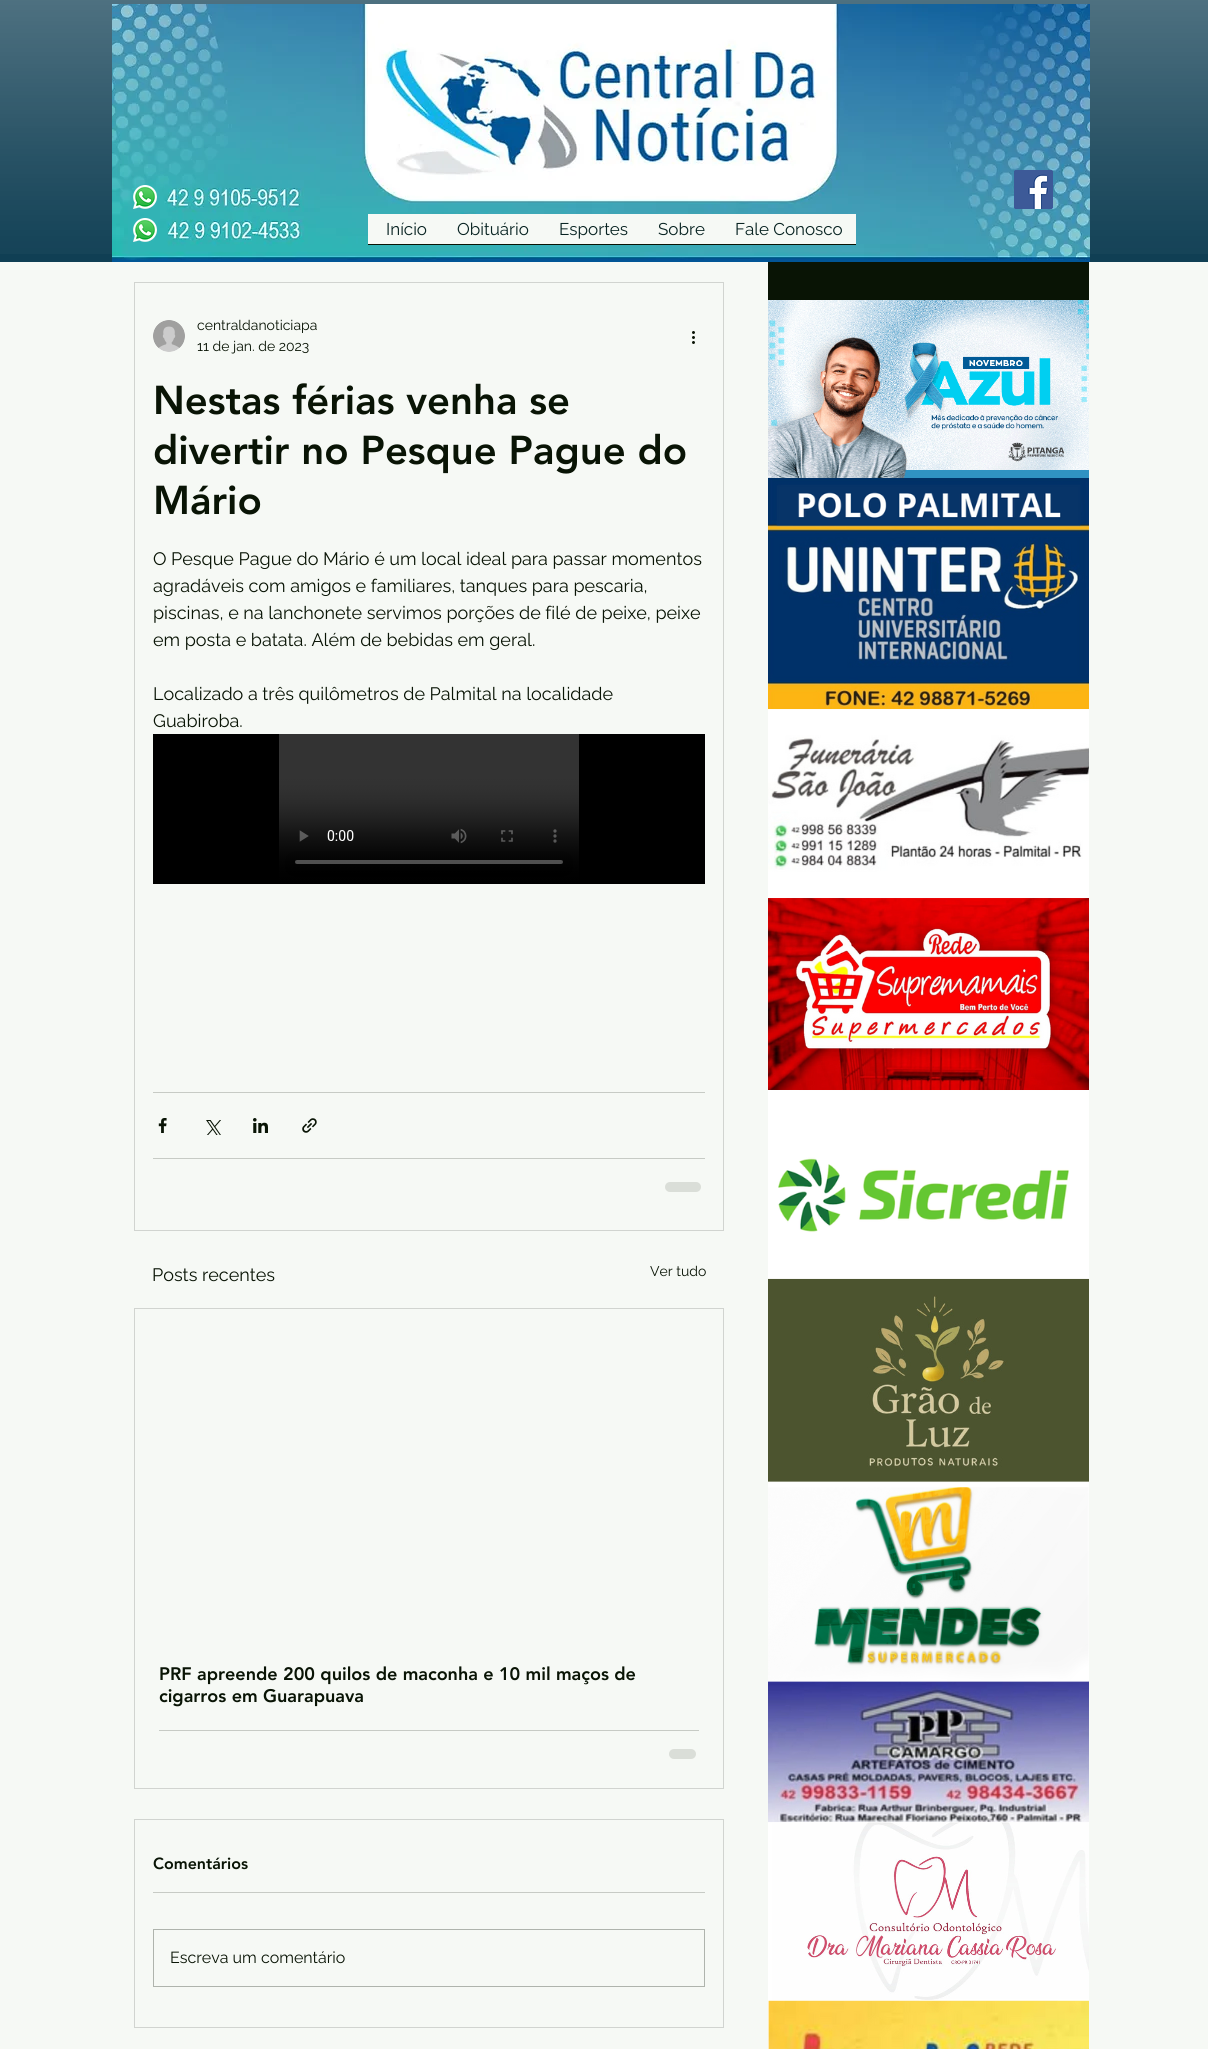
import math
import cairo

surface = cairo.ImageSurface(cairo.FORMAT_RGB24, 1208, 2049)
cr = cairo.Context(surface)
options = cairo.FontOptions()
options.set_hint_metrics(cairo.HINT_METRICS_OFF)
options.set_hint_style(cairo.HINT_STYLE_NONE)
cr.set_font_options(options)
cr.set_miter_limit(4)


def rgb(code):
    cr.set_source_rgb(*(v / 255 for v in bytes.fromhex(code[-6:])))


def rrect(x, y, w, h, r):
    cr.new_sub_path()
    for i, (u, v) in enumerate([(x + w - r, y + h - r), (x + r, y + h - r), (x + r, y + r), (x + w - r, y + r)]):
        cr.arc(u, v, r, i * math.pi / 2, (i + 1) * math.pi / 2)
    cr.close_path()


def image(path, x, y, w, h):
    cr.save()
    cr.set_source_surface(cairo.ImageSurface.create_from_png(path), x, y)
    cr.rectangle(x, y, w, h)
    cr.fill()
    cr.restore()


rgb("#f6f9f5")
cr.paint()
rgb("#103f54")
cr.rectangle(0, 0, 1208, 262)
cr.fill()
image("img/1.png", 0, 0, 1208, 254)
image("img/2.png", 112, 4, 978, 258)
image("img/3.png", 133, 185, 24, 24)
image("img/4.png", 1014, 170, 39, 39)
image("img/5.png", 133, 218, 24, 24)
for x, y, w, h, color in [
    (368, 214, 488, 30, "#f6f9f5"),
    (368, 244, 488, 1, "#091405"),
    (768, 262, 321, 38, "#091405"),
]:
    rgb(color)
    cr.rectangle(x, y, w, h)
    cr.fill()
cr.rectangle(134.5, 282.5, 589, 948)
rgb("#d1d4d0")
cr.set_line_width(1)
cr.stroke()
image("img/6.png", 153, 320, 32, 32)
image("img/7.png", 692, 331, 3, 13)
image("img/8.png", 153, 734, 552, 150)
rgb("#c7cbc5")
cr.rectangle(153, 1092, 552, 1)
cr.fill()
image("img/9.png", 158, 1118, 9, 15)
image("img/10.png", 206, 1120, 15, 15)
image("img/11.png", 253, 1118, 15, 15)
image("img/12.png", 302, 1118, 15, 15)
cr.rectangle(153, 1158, 552, 1)
cr.fill()
rgb("#daded8")
rrect(665, 1182, 36, 10, 5)
cr.fill()
cr.rectangle(134.5, 1308.5, 589, 480)
rgb("#d1d4d0")
cr.stroke()
rgb("#c7cbc5")
cr.rectangle(159, 1730, 540, 1)
cr.fill()
rgb("#daded8")
rrect(669, 1749, 27, 10, 5)
cr.fill()
cr.rectangle(134.5, 1819.5, 589, 208)
rgb("#d1d4d0")
cr.stroke()
rgb("#c7cbc5")
cr.rectangle(153, 1892, 552, 1)
cr.fill()
cr.rectangle(153.5, 1929.5, 551, 57)
rgb("#afb4ad")
cr.stroke()
image("img/13.png", 768, 300, 321, 178)
image("img/14.png", 768, 478, 321, 1571)
cr.select_font_face("Raleway")
cr.set_font_size(17)
rgb("#082322")
for x, y, s in [
    (386, 235, "Início"),
    (457, 235, "Obituário"),
    (559, 235, "Esportes"),
    (658, 235, "Sobre"),
    (735, 235, "Fale Conosco"),
]:
    cr.move_to(x, y)
    cr.show_text(s)
cr.set_font_size(14)
rgb("#091405")
cr.move_to(197, 330)
cr.show_text("centraldanoticiapa")
cr.move_to(197, 351)
cr.show_text("11 de jan. de 2023")
cr.select_font_face("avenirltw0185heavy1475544 Black")
cr.set_font_size(40)
for x, y, s in [
    (153, 414, "Nestas férias venha se"),
    (153, 464, "divertir no Pesque Pague do"),
    (153, 514, "Mário"),
]:
    cr.move_to(x, y)
    cr.show_text(s)
cr.select_font_face("Raleway")
cr.set_font_size(18)
for x, y, s in [
    (153, 565, "O Pesque Pague do Mário é um local ideal para passar momentos"),
    (153, 592, "agradáveis com amigos e familiares, tanques para pescaria,"),
    (153, 619, "piscinas, e na lanchonete servimos porções de filé de peixe, peixe"),
    (153, 646, "em posta e batata. Além de bebidas em geral."),
    (153, 700, "Localizado a três quilômetros de Palmital na localidade"),
    (153, 727, "Guabiroba."),
    (152, 1281, "Posts recentes"),
]:
    cr.move_to(x, y)
    cr.show_text(s)
cr.set_font_size(14)
cr.move_to(650, 1276)
cr.show_text("Ver tudo")
cr.select_font_face("avenirltw0185heavy1475544 Black")
cr.set_font_size(18)
cr.move_to(159, 1680)
cr.show_text("PRF apreende 200 quilos de maconha e 10 mil maços de")
cr.move_to(159, 1702)
cr.show_text("cigarros em Guarapuava")
cr.set_font_size(16)
cr.move_to(153, 1869)
cr.show_text("Comentários")
cr.select_font_face("Raleway")
cr.move_to(170, 1963)
cr.show_text("Escreva um comentário")
surface.write_to_png("page.png")
